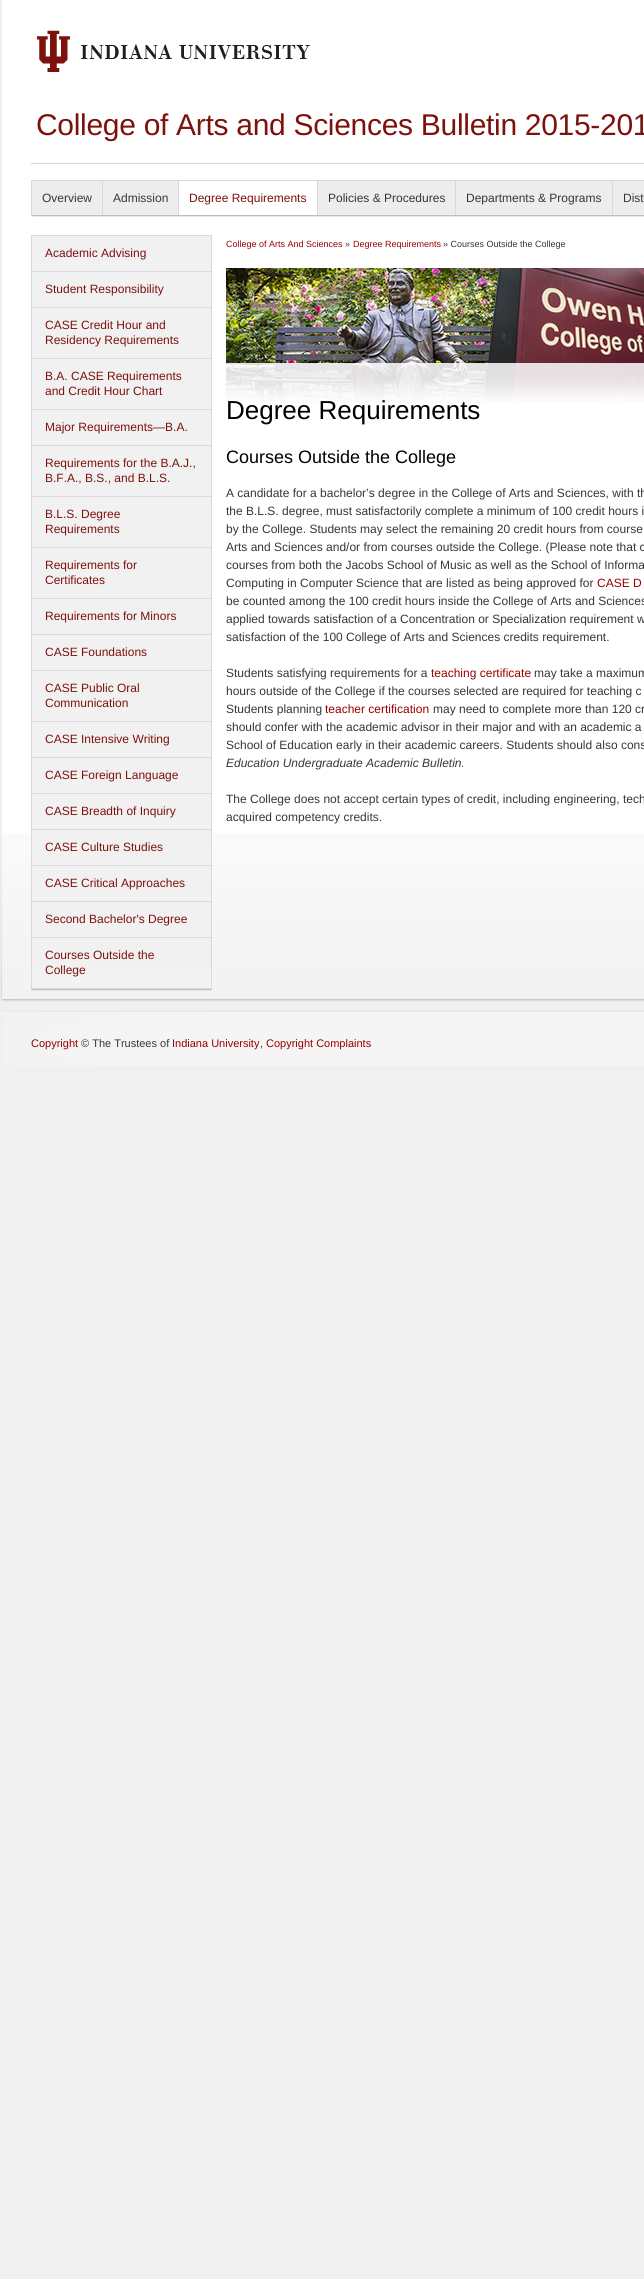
import math
import cairo

surface = cairo.ImageSurface(cairo.FORMAT_RGB24, 644, 2279)
cr = cairo.Context(surface)
options = cairo.FontOptions()
options.set_hint_metrics(cairo.HINT_METRICS_OFF)
options.set_hint_style(cairo.HINT_STYLE_NONE)
cr.set_font_options(options)
cr.set_miter_limit(4)


def rgb(code):
    cr.set_source_rgb(*(v / 255 for v in bytes.fromhex(code[-6:])))


def tracked(x, y, s, letter, word):
    cr.move_to(x, y)
    for ch in s:
        cr.show_text(ch)
        cr.rel_move_to(letter + word * (ch == ' '), 0)


def image(path, x, y, w, h):
    cr.save()
    cr.set_source_surface(cairo.ImageSurface.create_from_png(path), x, y)
    cr.rectangle(x, y, w, h)
    cr.fill()
    cr.restore()


rgb("#f0f0f0")
cr.paint()
rgb("#ffffff")
cr.rectangle(2, 0, 642, 833)
cr.fill()
image("img/1.png", 0, 833, 644, 169)
rgb("#d5d5d5")
cr.rectangle(31, 163, 613, 1)
cr.fill()
image("img/2.png", 37, 30, 273, 42)
rgb("#ededed")
cr.rectangle(32, 181, 612, 34)
cr.fill()
image("img/3.png", 31, 215, 613, 2)
for x, y, w, h, color in [
    (31, 180, 613, 1, "#d9d9d9"),
    (31, 180, 1, 35, "#d9d9d9"),
    (102, 181, 1, 34, "#d9d9d9"),
    (178, 181, 1, 34, "#d9d9d9"),
    (179, 181, 138, 34, "#ffffff"),
    (317, 181, 1, 34, "#d9d9d9"),
    (455, 181, 1, 34, "#d9d9d9"),
    (612, 181, 1, 34, "#d9d9d9"),
]:
    rgb(color)
    cr.rectangle(x, y, w, h)
    cr.fill()
image("img/4.png", 31, 989, 181, 2)
for x, y, w, h, color in [
    (31, 235, 181, 1, "#d9d9d9"),
    (211, 235, 1, 754, "#d9d9d9"),
    (31, 235, 1, 754, "#d9d9d9"),
    (32, 236, 179, 35, "#f1f1f1"),
    (32, 271, 179, 1, "#d9d9d9"),
    (32, 272, 179, 35, "#f1f1f1"),
    (32, 307, 179, 1, "#d9d9d9"),
    (32, 308, 179, 50, "#f1f1f1"),
    (32, 358, 179, 1, "#d9d9d9"),
    (32, 359, 179, 50, "#f1f1f1"),
    (32, 409, 179, 1, "#d9d9d9"),
    (32, 410, 179, 35, "#f1f1f1"),
    (32, 445, 179, 1, "#d9d9d9"),
    (32, 446, 179, 50, "#f1f1f1"),
    (32, 496, 179, 1, "#d9d9d9"),
    (32, 497, 179, 50, "#f1f1f1"),
    (32, 547, 179, 1, "#d9d9d9"),
    (32, 548, 179, 50, "#f1f1f1"),
    (32, 598, 179, 1, "#d9d9d9"),
    (32, 599, 179, 35, "#f1f1f1"),
    (32, 634, 179, 1, "#d9d9d9"),
    (32, 635, 179, 35, "#f1f1f1"),
    (32, 670, 179, 1, "#d9d9d9"),
    (32, 671, 179, 50, "#f1f1f1"),
    (32, 721, 179, 1, "#d9d9d9"),
    (32, 722, 179, 35, "#f1f1f1"),
    (32, 757, 179, 1, "#d9d9d9"),
    (32, 758, 179, 35, "#f1f1f1"),
    (32, 793, 179, 1, "#d9d9d9"),
    (32, 794, 179, 35, "#f1f1f1"),
    (32, 829, 179, 1, "#d9d9d9"),
    (32, 830, 179, 35, "#f1f1f1"),
    (32, 865, 179, 1, "#d9d9d9"),
    (32, 866, 179, 35, "#f1f1f1"),
    (32, 901, 179, 1, "#d9d9d9"),
    (32, 902, 179, 35, "#f1f1f1"),
    (32, 937, 179, 1, "#d9d9d9"),
    (32, 938, 179, 32, "#f1f1f1"),
    (32, 988, 179, 1, "#d9d9d9"),
]:
    rgb(color)
    cr.rectangle(x, y, w, h)
    cr.fill()
image("img/5.png", 226, 268, 418, 135)
image("img/6.png", 3, 1010, 641, 56)
cr.select_font_face("Liberation Sans")
cr.set_font_size(30)
rgb("#7d110c")
tracked(36, 135, "College of Arts and Sciences Bulletin 2015-201", -0.3, 0)
cr.set_font_size(12)
rgb("#363636")
cr.move_to(42, 202)
cr.show_text("Overview")
cr.move_to(113, 202)
cr.show_text("Admission")
rgb("#7d110c")
cr.move_to(189, 202)
cr.show_text("Degree Requirements")
rgb("#363636")
for x, y, s in [
    (328, 202, "Policies & Procedures"),
    (466, 202, "Departments & Programs"),
    (623, 202, "Dist"),
]:
    cr.move_to(x, y)
    cr.show_text(s)
rgb("#7d110c")
for x, y, s in [
    (45, 257, "Academic Advising"),
    (45, 293, "Student Responsibility"),
    (45, 329, "CASE Credit Hour and"),
    (45, 344, "Residency Requirements"),
    (45, 380, "B.A. CASE Requirements"),
    (45, 395, "and Credit Hour Chart"),
    (45, 431, "Major Requirements—B.A."),
    (45, 467, "Requirements for the B.A.J.,"),
    (45, 482, "B.F.A., B.S., and B.L.S."),
    (45, 518, "B.L.S. Degree"),
    (45, 533, "Requirements"),
    (45, 569, "Requirements for"),
    (45, 584, "Certificates"),
    (45, 620, "Requirements for Minors"),
    (45, 656, "CASE Foundations"),
    (45, 692, "CASE Public Oral"),
    (45, 707, "Communication"),
    (45, 743, "CASE Intensive Writing"),
    (45, 779, "CASE Foreign Language"),
    (45, 815, "CASE Breadth of Inquiry"),
    (45, 851, "CASE Culture Studies"),
    (45, 887, "CASE Critical Approaches"),
    (45, 923, "Second Bachelor's Degree"),
    (45, 959, "Courses Outside the"),
    (45, 974, "College"),
]:
    cr.move_to(x, y)
    cr.show_text(s)
cr.set_font_size(9)
rgb("#990000")
cr.move_to(226, 247)
cr.show_text("College of Arts And Sciences")
rgb("#363636")
cr.move_to(345, 247)
cr.show_text("»")
rgb("#990000")
cr.move_to(353, 247)
cr.show_text("Degree Requirements")
rgb("#363636")
cr.move_to(443, 247)
cr.show_text("» Courses Outside the College")
cr.set_font_size(26)
rgb("#000000")
cr.move_to(226, 419)
cr.show_text("Degree Requirements")
cr.set_font_size(18)
cr.move_to(226, 463)
cr.show_text("Courses Outside the College")
cr.set_font_size(12)
rgb("#363636")
for x, y, s in [
    (226, 497, "A candidate for a bachelor’s degree in the College of Arts and Sciences, with th"),
    (226, 515, "the B.L.S. degree, must satisfactorily complete a minimum of 100 credit hours i"),
    (226, 533, "by the College. Students may select the remaining 20 credit hours from course"),
    (226, 551, "Arts and Sciences and/or from courses outside the College. (Please note that c"),
    (226, 569, "courses from both the Jacobs School of Music as well as the School of Informa"),
    (226, 587, "Computing in Computer Science that are listed as being approved for"),
]:
    cr.move_to(x, y)
    cr.show_text(s)
rgb("#990000")
cr.move_to(597, 587)
cr.show_text("CASE D")
rgb("#363636")
for x, y, s in [
    (226, 605, "be counted among the 100 credit hours inside the College of Arts and Sciences"),
    (226, 623, "applied towards satisfaction of a Concentration or Specialization requirement w"),
    (226, 641, "satisfaction of the 100 College of Arts and Sciences credits requirement."),
    (226, 677, "Students satisfying requirements for a"),
]:
    cr.move_to(x, y)
    cr.show_text(s)
rgb("#990000")
cr.move_to(431, 677)
cr.show_text("teaching certificate")
rgb("#363636")
for x, y, s in [
    (534, 677, "may take a maximum"),
    (226, 695, "hours outside of the College if the courses selected are required for teaching c"),
    (226, 713, "Students planning"),
]:
    cr.move_to(x, y)
    cr.show_text(s)
rgb("#990000")
cr.move_to(325, 713)
cr.show_text("teacher certification")
rgb("#363636")
for x, y, s in [
    (433, 713, "may need to complete more than 120 cr"),
    (226, 731, "should confer with the academic advisor in their major and with an academic a"),
    (226, 749, "School of Education early in their academic careers. Students should also cons"),
]:
    cr.move_to(x, y)
    cr.show_text(s)
cr.select_font_face("Liberation Sans", cairo.FONT_SLANT_ITALIC)
cr.move_to(226, 767)
cr.show_text("Education Undergraduate Academic Bulletin.")
cr.select_font_face("Liberation Sans")
cr.move_to(226, 803)
cr.show_text("The College does not accept certain types of credit, including engineering, tech")
cr.move_to(226, 821)
cr.show_text("acquired competency credits.")
cr.set_font_size(11)
rgb("#990000")
cr.move_to(31, 1047)
cr.show_text("Copyright")
rgb("#363636")
cr.move_to(81, 1047)
cr.show_text("© The Trustees of")
rgb("#990000")
cr.move_to(172, 1047)
cr.show_text("Indiana University")
rgb("#363636")
cr.move_to(260, 1047)
cr.show_text(",")
rgb("#990000")
cr.move_to(266, 1047)
cr.show_text("Copyright Complaints")
surface.write_to_png("page.png")
